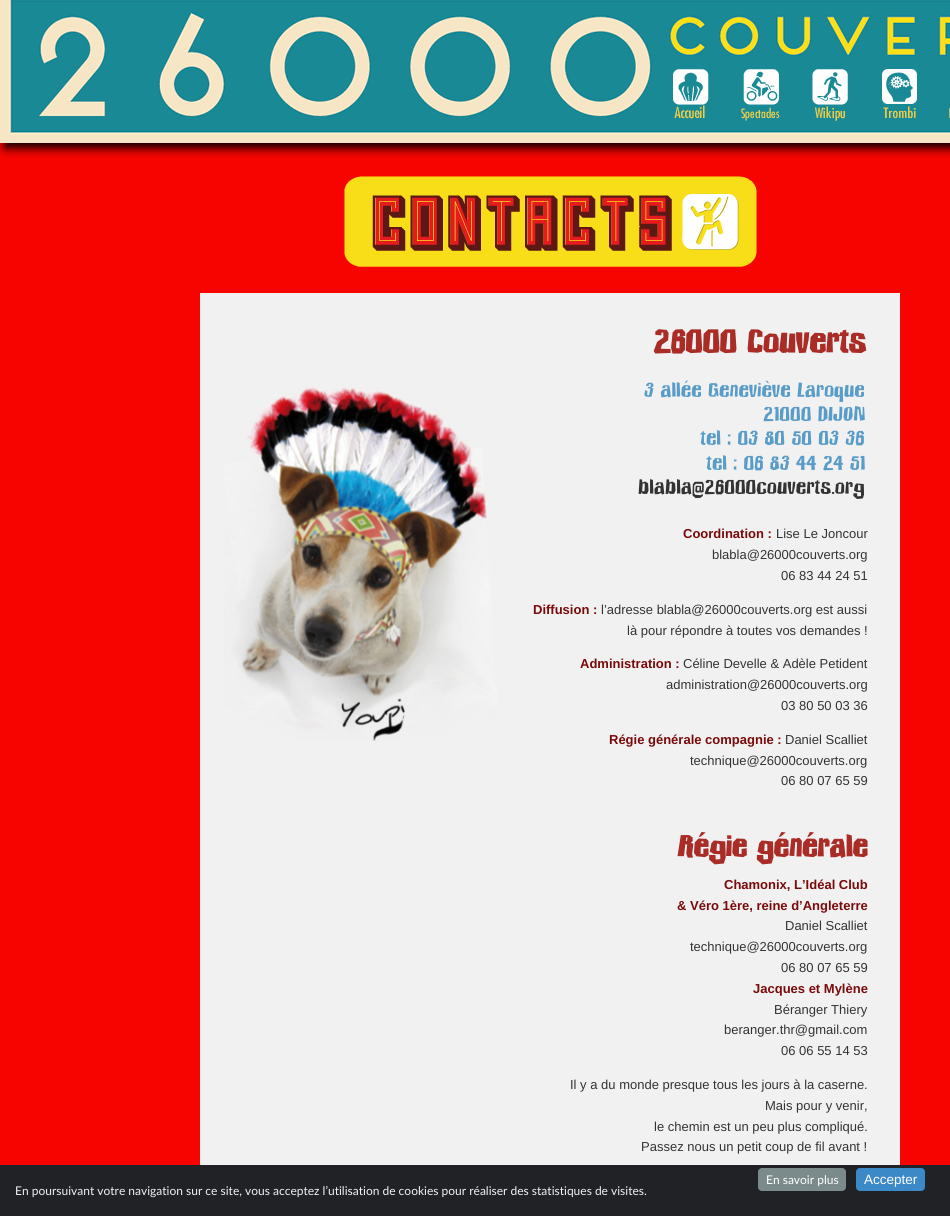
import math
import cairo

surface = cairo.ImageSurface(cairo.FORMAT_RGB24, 950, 1216)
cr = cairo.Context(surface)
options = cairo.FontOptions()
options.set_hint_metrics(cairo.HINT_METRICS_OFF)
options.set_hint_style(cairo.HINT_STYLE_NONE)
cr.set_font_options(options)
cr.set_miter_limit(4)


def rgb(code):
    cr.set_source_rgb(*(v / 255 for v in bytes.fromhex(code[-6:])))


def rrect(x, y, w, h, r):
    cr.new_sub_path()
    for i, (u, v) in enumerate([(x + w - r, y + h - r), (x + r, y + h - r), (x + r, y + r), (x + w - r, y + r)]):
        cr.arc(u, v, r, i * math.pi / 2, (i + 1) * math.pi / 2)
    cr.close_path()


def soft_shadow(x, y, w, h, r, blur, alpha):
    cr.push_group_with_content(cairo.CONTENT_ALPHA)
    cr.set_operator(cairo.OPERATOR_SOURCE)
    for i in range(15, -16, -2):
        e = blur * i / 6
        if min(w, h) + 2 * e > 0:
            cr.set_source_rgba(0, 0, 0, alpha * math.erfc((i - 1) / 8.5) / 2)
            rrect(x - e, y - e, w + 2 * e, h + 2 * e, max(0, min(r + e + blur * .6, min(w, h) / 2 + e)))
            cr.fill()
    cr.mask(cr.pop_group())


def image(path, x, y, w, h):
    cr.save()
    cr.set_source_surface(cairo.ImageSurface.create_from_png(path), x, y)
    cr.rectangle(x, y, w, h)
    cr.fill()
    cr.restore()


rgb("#f70400")
cr.paint()
rgb("#000000")
soft_shadow(5, -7, 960, 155, 0, 5, 1)
image("img/1.png", 0, 0, 950, 143)
image("img/2.png", 673, 69, 36, 50)
image("img/3.png", 741, 69, 39, 52)
image("img/4.png", 812, 69, 36, 52)
image("img/5.png", 882, 69, 35, 50)
image("img/6.png", 949, 108, 1, 10)
image("img/7.png", 344, 176, 413, 91)
rgb("#f1f1f1")
cr.rectangle(200, 293, 700, 872)
cr.fill()
image("img/8.png", 224, 381, 273, 360)
rgb("#202226")
cr.rectangle(0, 1165, 950, 51)
cr.fill()
rgb("#7b8a8b")
rrect(758, 1168, 88, 23, 4)
cr.fill()
rgb("#3b89c7")
rrect(856, 1168, 69, 23, 4)
cr.fill()
cr.select_font_face("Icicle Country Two", cairo.FONT_SLANT_NORMAL, cairo.FONT_WEIGHT_BOLD)
cr.set_font_size(35.5)
rgb("#aa2c27")
cr.move_to(653, 353)
cr.show_text("26000 Couverts")
cr.select_font_face("Icicle Country Two")
cr.set_font_size(22.1)
rgb("#5a9cc8")
for x, y, s in [
    (644, 397, "3 allée Geneviève Laroque"),
    (763, 421, "21000 DIJON"),
    (700, 445, "tel : 03 80 50 03 36"),
    (706, 470, "tel : 06 83 44 24 51"),
]:
    cr.move_to(x, y)
    cr.show_text(s)
rgb("#333333")
cr.move_to(638, 494)
cr.show_text("blabla@26000couverts.org")
cr.select_font_face("Liberation Sans", cairo.FONT_SLANT_NORMAL, cairo.FONT_WEIGHT_BOLD)
cr.set_font_size(13)
rgb("#7a0a0a")
cr.move_to(683, 538)
cr.show_text("Coordination :")
cr.select_font_face("Liberation Sans")
rgb("#333333")
for x, y, s in [
    (776, 538, "Lise Le Joncour"),
    (712, 559, "blabla@26000couverts.org"),
    (781, 580, "06 83 44 24 51"),
]:
    cr.move_to(x, y)
    cr.show_text(s)
cr.select_font_face("Liberation Sans", cairo.FONT_SLANT_NORMAL, cairo.FONT_WEIGHT_BOLD)
rgb("#7a0a0a")
cr.move_to(533, 614)
cr.show_text("Diffusion :")
cr.select_font_face("Liberation Sans")
rgb("#333333")
cr.move_to(601, 614)
cr.show_text("l’adresse blabla@26000couverts.org est aussi")
cr.move_to(627, 635)
cr.show_text("là pour répondre à toutes vos demandes !")
cr.select_font_face("Liberation Sans", cairo.FONT_SLANT_NORMAL, cairo.FONT_WEIGHT_BOLD)
rgb("#7a0a0a")
cr.move_to(580, 668)
cr.show_text("Administration :")
cr.select_font_face("Liberation Sans")
rgb("#333333")
for x, y, s in [
    (683, 668, "Céline Develle & Adèle Petident"),
    (666, 689, "administration@26000couverts.org"),
    (781, 710, "03 80 50 03 36"),
]:
    cr.move_to(x, y)
    cr.show_text(s)
cr.select_font_face("Liberation Sans", cairo.FONT_SLANT_NORMAL, cairo.FONT_WEIGHT_BOLD)
rgb("#7a0a0a")
cr.move_to(609, 744)
cr.show_text("Régie générale compagnie :")
cr.select_font_face("Liberation Sans")
rgb("#333333")
for x, y, s in [
    (785, 744, "Daniel Scalliet"),
    (690, 765, "technique@26000couverts.org"),
    (781, 785, "06 80 07 65 59"),
]:
    cr.move_to(x, y)
    cr.show_text(s)
cr.select_font_face("Icicle Country Two", cairo.FONT_SLANT_NORMAL, cairo.FONT_WEIGHT_BOLD)
cr.set_font_size(32.5)
rgb("#aa2c27")
cr.move_to(677, 857)
cr.show_text("Régie générale")
cr.select_font_face("Liberation Sans", cairo.FONT_SLANT_NORMAL, cairo.FONT_WEIGHT_BOLD)
cr.set_font_size(13)
rgb("#7a0a0a")
cr.move_to(724, 889)
cr.show_text("Chamonix, L’Idéal Club")
cr.move_to(677, 910)
cr.show_text("& Véro 1ère, reine d’Angleterre")
cr.select_font_face("Liberation Sans")
rgb("#333333")
for x, y, s in [
    (785, 930, "Daniel Scalliet"),
    (690, 951, "technique@26000couverts.org"),
    (781, 972, "06 80 07 65 59"),
]:
    cr.move_to(x, y)
    cr.show_text(s)
cr.select_font_face("Liberation Sans", cairo.FONT_SLANT_NORMAL, cairo.FONT_WEIGHT_BOLD)
rgb("#7a0a0a")
cr.move_to(753, 993)
cr.show_text("Jacques et Mylène")
cr.select_font_face("Liberation Sans")
rgb("#333333")
for x, y, s in [
    (774, 1014, "Béranger Thiery"),
    (724, 1034, "beranger.thr@gmail.com"),
    (781, 1055, "06 06 55 14 53"),
    (570, 1089, "Il y a du monde presque tous les jours à la caserne."),
    (765, 1110, "Mais pour y venir,"),
    (654, 1131, "le chemin est un peu plus compliqué."),
    (641, 1151, "Passez nous un petit coup de fil avant !"),
]:
    cr.move_to(x, y)
    cr.show_text(s)
cr.select_font_face("Lato")
cr.set_font_size(12)
rgb("#ffffff")
cr.move_to(766, 1184)
cr.show_text("En savoir plus")
cr.select_font_face("Liberation Sans")
cr.set_font_size(13.5)
cr.move_to(864, 1184)
cr.show_text("Accepter")
cr.select_font_face("Lato")
cr.set_font_size(12)
rgb("#f1f1f3")
cr.move_to(15, 1195)
cr.show_text("En poursuivant votre navigation sur ce site, vous acceptez l’utilisation de cookies pour réaliser des statistiques de visites.")
surface.write_to_png("page.png")
